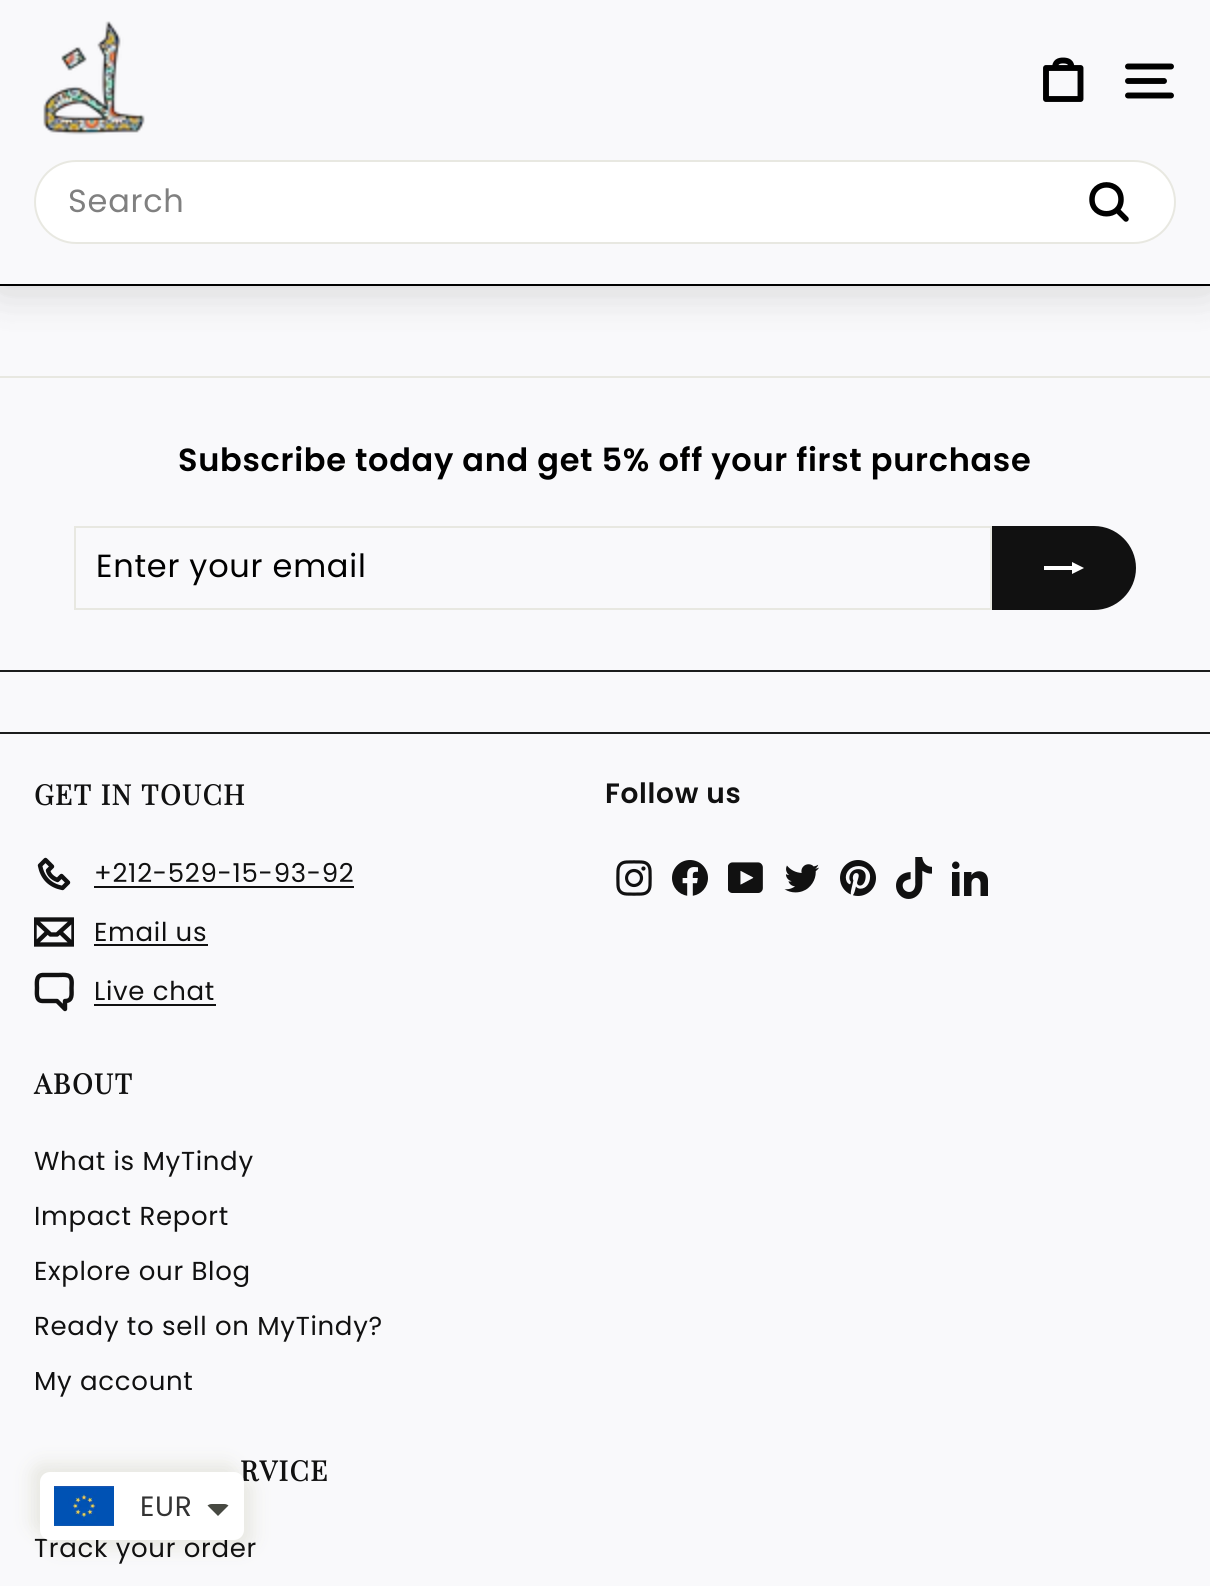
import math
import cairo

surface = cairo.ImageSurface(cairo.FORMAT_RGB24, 1210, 1586)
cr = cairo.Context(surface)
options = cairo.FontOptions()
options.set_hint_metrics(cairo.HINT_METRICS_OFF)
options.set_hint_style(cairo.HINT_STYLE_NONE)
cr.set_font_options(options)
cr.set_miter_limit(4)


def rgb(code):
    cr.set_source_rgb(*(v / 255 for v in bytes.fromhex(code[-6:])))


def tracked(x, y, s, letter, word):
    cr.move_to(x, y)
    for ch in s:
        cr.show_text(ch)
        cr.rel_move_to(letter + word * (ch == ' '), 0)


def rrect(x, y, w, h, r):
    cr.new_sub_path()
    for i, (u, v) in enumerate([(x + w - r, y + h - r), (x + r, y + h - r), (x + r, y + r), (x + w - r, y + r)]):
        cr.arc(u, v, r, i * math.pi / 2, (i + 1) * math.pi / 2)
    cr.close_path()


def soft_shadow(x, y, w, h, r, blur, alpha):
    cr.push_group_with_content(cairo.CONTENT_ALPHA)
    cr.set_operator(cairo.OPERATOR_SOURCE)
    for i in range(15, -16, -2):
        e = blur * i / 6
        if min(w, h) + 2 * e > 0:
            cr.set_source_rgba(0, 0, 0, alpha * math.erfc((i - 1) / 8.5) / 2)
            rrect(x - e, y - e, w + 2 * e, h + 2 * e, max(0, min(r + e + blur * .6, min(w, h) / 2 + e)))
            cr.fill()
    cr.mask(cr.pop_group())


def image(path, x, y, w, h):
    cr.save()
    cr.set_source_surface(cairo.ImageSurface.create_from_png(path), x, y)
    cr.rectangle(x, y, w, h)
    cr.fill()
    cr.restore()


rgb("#f9f9fb")
cr.paint()
rgb("#000000")
soft_shadow(0, 0, 1210, 286, 0, 25, 0.1)
rgb("#000000")
cr.rectangle(0, 284, 1210, 2)
cr.fill()
rgb("#000000")
soft_shadow(0, 160, 1210, 124, 0, 25, 0.1)
rgb("#f9f9fb")
cr.rectangle(0, 0, 1210, 284)
cr.fill()
image("img/1.png", 43, 21, 102, 114)
cr.new_path()
cr.move_to(1055, 68)
cr.curve_to(1055, 62, 1058.5, 60.5, 1063, 60.5)
cr.curve_to(1068, 60.5, 1071.5, 62, 1071.5, 68)
cr.move_to(1046, 68)
cr.line_to(1080.5, 68)
cr.line_to(1080.5, 99)
cr.line_to(1046, 99)
cr.close_path()
rgb("#000000")
cr.set_line_width(5.9)
cr.set_line_cap(cairo.LINE_CAP_ROUND)
cr.set_line_join(cairo.LINE_JOIN_ROUND)
cr.stroke()
cr.new_path()
cr.move_to(1128, 66.5)
cr.line_to(1171, 66.5)
cr.move_to(1128, 81)
cr.line_to(1164, 81)
cr.move_to(1128, 95.5)
cr.line_to(1171, 95.5)
cr.stroke()
rgb("#ffffff")
rrect(35, 161, 1140, 82, 41)
cr.fill_preserve()
rgb("#e8e8e1")
cr.set_line_width(2)
cr.set_line_cap(cairo.LINE_CAP_BUTT)
cr.set_line_join(cairo.LINE_JOIN_MITER)
cr.stroke()
cr.new_path()
cr.move_to(1121, 199.5)
cr.curve_to(1121, 218.5, 1092, 218.5, 1092, 199.5)
cr.curve_to(1092, 180, 1121, 180, 1121, 199.5)
cr.close_path()
cr.move_to(1126, 219)
cr.line_to(1117, 210)
rgb("#000000")
cr.set_line_width(5.5)
cr.set_line_cap(cairo.LINE_CAP_ROUND)
cr.set_line_join(cairo.LINE_JOIN_ROUND)
cr.stroke()
rgb("#e8e8e1")
cr.rectangle(0, 376, 1210, 2)
cr.fill()
cr.rectangle(75, 527, 916, 82)
cr.set_line_width(2)
cr.set_line_cap(cairo.LINE_CAP_BUTT)
cr.set_line_join(cairo.LINE_JOIN_MITER)
cr.stroke()
rgb("#111111")
cr.new_path()
cr.move_to(992, 526)
cr.line_to(1094, 526)
cr.curve_to(1117, 526, 1136, 545, 1136, 568)
cr.curve_to(1136, 591, 1117, 610, 1094, 610)
cr.line_to(992, 610)
cr.close_path()
cr.fill()
rgb("#ffffff")
cr.new_path()
cr.move_to(1044, 570)
cr.line_to(1044, 566)
cr.line_to(1072, 566)
cr.line_to(1072, 562)
cr.line_to(1084, 568)
cr.line_to(1072, 574)
cr.line_to(1072, 570)
cr.close_path()
cr.fill()
rgb("#1c1d1d")
cr.rectangle(0, 670, 1210, 2)
cr.fill()
cr.rectangle(0, 732, 1210, 2)
cr.fill()
cr.new_path()
cr.move_to(45.5, 860)
cr.line_to(52, 866.5)
cr.line_to(48, 870.5)
cr.curve_to(49, 874.5, 52, 878, 57.5, 880)
cr.line_to(61.5, 876)
cr.line_to(68, 882.5)
cr.line_to(62.5, 888)
cr.curve_to(50, 885.5, 42.5, 878, 40, 865.5)
cr.close_path()
rgb("#111111")
cr.set_line_width(4.4)
cr.set_line_cap(cairo.LINE_CAP_ROUND)
cr.set_line_join(cairo.LINE_JOIN_ROUND)
cr.stroke()
cr.rectangle(94, 886, 260, 2)
cr.fill()
cr.save()
cr.rectangle(34, 912, 40, 40)
cr.clip()
cr.new_path()
cr.move_to(73.5, 944.5)
cr.line_to(34.5, 944.5)
cr.line_to(34.5, 919.5)
cr.line_to(73.5, 919.5)
cr.close_path()
cr.move_to(34.5, 919.5)
cr.line_to(50.5, 934.5)
cr.line_to(57, 934.5)
cr.line_to(73.5, 919.5)
cr.move_to(47.5, 932)
cr.line_to(35, 944)
cr.move_to(73, 944.5)
cr.line_to(60, 932)
cr.stroke()
cr.restore()
cr.rectangle(94, 944, 114, 2)
cr.fill()
cr.new_path()
cr.move_to(42.5, 1001)
cr.curve_to(35.5, 1001, 37, 992.5, 37, 988)
cr.curve_to(37, 983.5, 35.5, 975.5, 42.5, 975)
cr.line_to(58, 975)
cr.curve_to(61, 975, 65, 974.5, 68, 975.5)
cr.curve_to(73, 977.5, 71.5, 984, 71.5, 988)
cr.curve_to(71.5, 994, 73, 1001, 65, 1001)
cr.line_to(65, 1009)
cr.line_to(57, 1001)
cr.close_path()
cr.stroke()
cr.rectangle(94, 1004, 122, 2)
cr.fill()
image("img/2.png", 616, 860, 36, 36)
image("img/3.png", 672, 860, 36, 36)
image("img/4.png", 728, 862, 35, 31)
image("img/5.png", 784, 864, 35, 29)
image("img/6.png", 840, 860, 36, 36)
image("img/7.png", 896, 857, 36, 42)
image("img/8.png", 952, 861, 36, 35)
rgb("#e8e8e2")
soft_shadow(32, 1464, 204, 68, 10, 9, 1)
soft_shadow(48, 1480, 204, 68, 10, 9, 1)
cr.select_font_face("Poppins")
cr.set_font_size(32)
rgb("#808080")
tracked(68, 212, "Search", 0.75, 0)
cr.select_font_face("Poppins SemiBold")
rgb("#000000")
tracked(178, 471, "Subscribe today and get 5% off your first purchase", 0.7, 0)
cr.select_font_face("Poppins")
tracked(96, 577, "Enter your email", 0.75, 0)
cr.select_font_face("Playfair Display", cairo.FONT_SLANT_NORMAL, cairo.FONT_WEIGHT_BOLD)
cr.set_font_size(28)
rgb("#111111")
tracked(34, 805, "GET IN TOUCH", 1.4, 0)
cr.select_font_face("Poppins")
cr.set_font_size(26)
for x, y, s in [
    (94, 882, "+212-529-15-93-92"),
    (94, 941, "Email us"),
    (94, 1000, "Live chat"),
]:
    tracked(x, y, s, 0.7, 0)
cr.select_font_face("Poppins SemiBold")
cr.set_font_size(28)
tracked(605, 803, "Follow us", 0.7, 0)
cr.select_font_face("Playfair Display", cairo.FONT_SLANT_NORMAL, cairo.FONT_WEIGHT_BOLD)
tracked(34, 1094, "ABOUT", 1.4, 0)
cr.select_font_face("Poppins")
cr.set_font_size(26)
for x, y, s in [
    (34, 1170, "What is MyTindy"),
    (34, 1225, "Impact Report"),
    (34, 1280, "Explore our Blog"),
    (34, 1335, "Ready to sell on MyTindy?"),
    (34, 1390, "My account"),
]:
    tracked(x, y, s, 0.7, 0)
cr.select_font_face("Playfair Display", cairo.FONT_SLANT_NORMAL, cairo.FONT_WEIGHT_BOLD)
cr.set_font_size(28)
tracked(240, 1481, "RVICE", 1.4, 0)
cr.select_font_face("Poppins")
cr.set_font_size(26)
tracked(34, 1557, "Track your order", 0.7, 0)
rgb("#ffffff")
rrect(40, 1472, 204, 68, 10)
cr.fill()
image("img/9.png", 54, 1486, 60, 40)
cr.set_font_size(28)
rgb("#333333")
tracked(140, 1516, "EUR", 0.7, 0)
rgb("#474942")
cr.new_path()
cr.move_to(212, 1504)
cr.curve_to(210, 1504, 209, 1504.5, 207.5, 1505.5)
cr.line_to(218, 1516)
cr.line_to(228.5, 1505.5)
cr.curve_to(227, 1504.5, 226, 1504, 224, 1504)
cr.close_path()
cr.fill()
surface.write_to_png("page.png")
